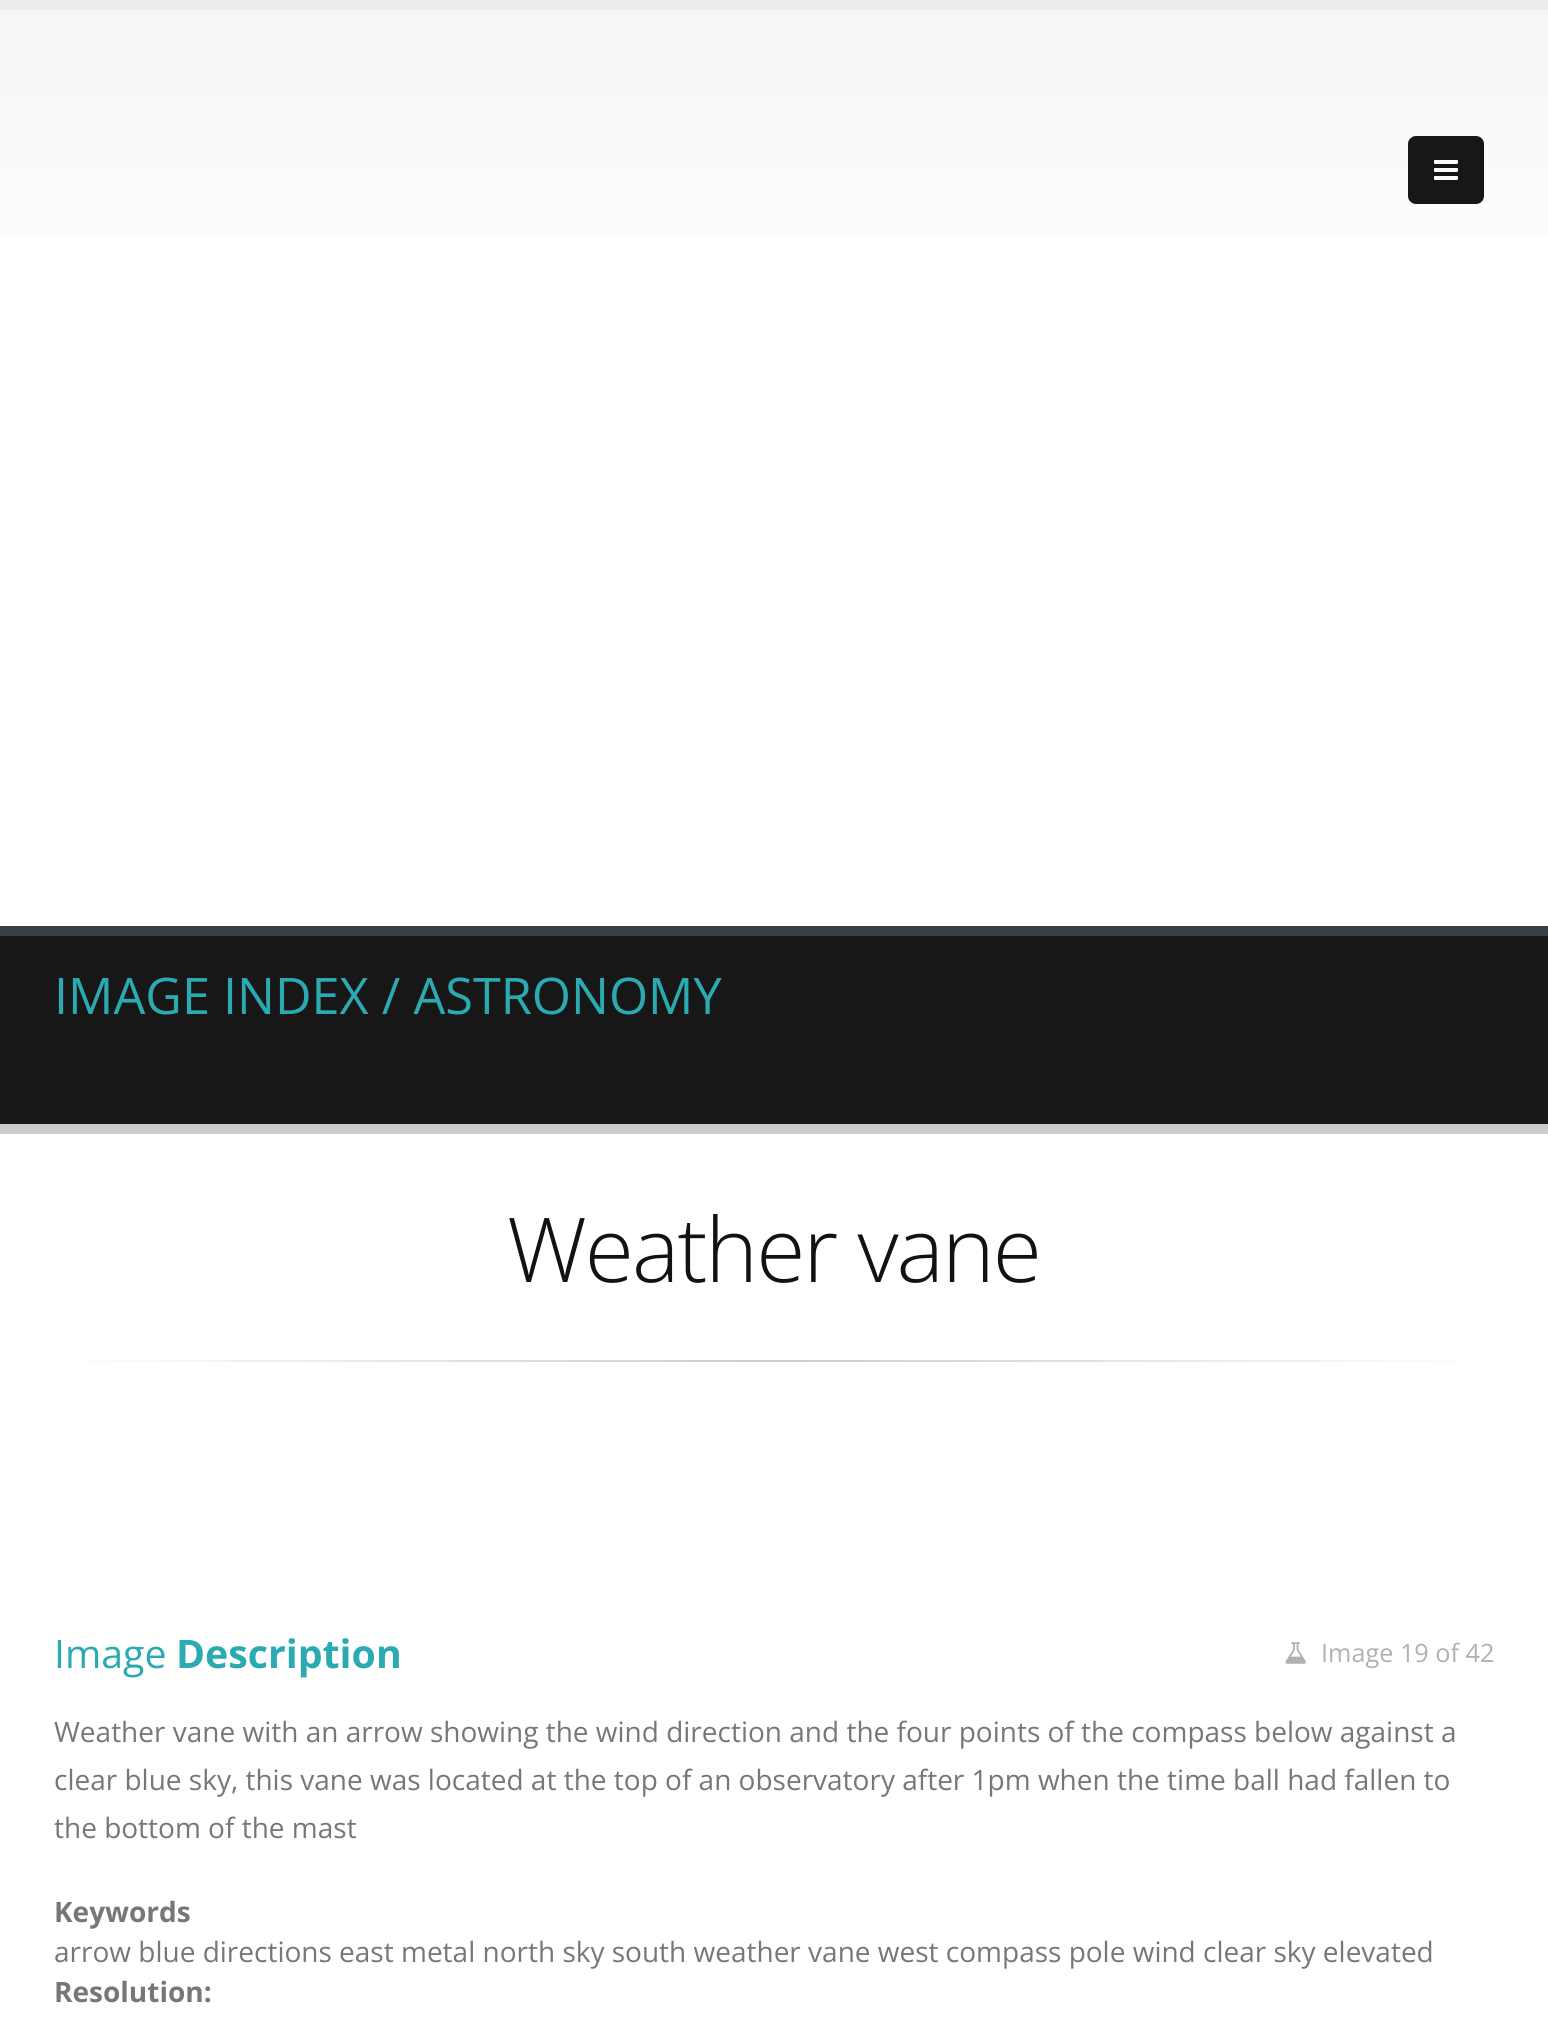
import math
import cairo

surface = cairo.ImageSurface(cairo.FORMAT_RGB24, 1548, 2022)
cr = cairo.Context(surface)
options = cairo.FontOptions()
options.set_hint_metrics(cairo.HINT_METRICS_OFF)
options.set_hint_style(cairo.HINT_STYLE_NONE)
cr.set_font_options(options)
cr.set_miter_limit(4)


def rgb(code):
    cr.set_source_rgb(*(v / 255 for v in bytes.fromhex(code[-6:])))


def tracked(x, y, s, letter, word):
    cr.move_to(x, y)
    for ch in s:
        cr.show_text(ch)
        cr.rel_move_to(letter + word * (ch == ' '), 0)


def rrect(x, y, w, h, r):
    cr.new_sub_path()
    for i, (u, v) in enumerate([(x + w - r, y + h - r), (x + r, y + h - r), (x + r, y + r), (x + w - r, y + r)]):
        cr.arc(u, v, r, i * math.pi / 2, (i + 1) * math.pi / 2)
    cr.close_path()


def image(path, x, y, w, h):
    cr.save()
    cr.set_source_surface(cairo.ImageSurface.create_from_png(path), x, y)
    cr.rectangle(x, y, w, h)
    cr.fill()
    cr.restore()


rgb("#ffffff")
cr.paint()
gradient = cairo.LinearGradient(774, 10, 774, 326)
gradient.add_color_stop_rgba(0, 0.965, 0.965, 0.965, 1)
gradient.add_color_stop_rgba(1, 1, 1, 1, 1)
cr.set_source(gradient)
cr.rectangle(0, 10, 1548, 228)
cr.fill()
rgb("#ededed")
cr.rectangle(0, 0, 1548, 10)
cr.fill()
rgb("#171717")
rrect(1408, 136, 76, 68, 8)
cr.fill()
image("img/1.png", 1434, 160, 24, 20)
for x, y, w, h, color in [
    (0, 936, 1548, 188, "#171717"),
    (0, 926, 1548, 10, "#384045"),
    (0, 1124, 1548, 10, "#cccccc"),
]:
    rgb(color)
    cr.rectangle(x, y, w, h)
    cr.fill()
gradient = cairo.LinearGradient(54, 1361, 1494, 1361)
gradient.add_color_stop_rgba(0, 1, 1, 1, 1)
gradient.add_color_stop_rgba(0.5, 0.8, 0.8, 0.8, 1)
gradient.add_color_stop_rgba(1, 1, 1, 1, 1)
cr.set_source(gradient)
cr.rectangle(89, 1360, 1370, 2)
cr.fill()
image("img/2.png", 1285, 1642, 21, 22)
cr.select_font_face("Open Sans")
cr.set_font_size(50.4)
rgb("#2baab1")
cr.move_to(54, 1014)
cr.show_text("IMAGE INDEX / ASTRONOMY")
cr.select_font_face("Open Sans Light")
cr.set_font_size(89.5)
rgb("#121214")
tracked(507, 1282, "Weather vane", -2, 0)
cr.select_font_face("Open Sans")
cr.set_font_size(39.25)
rgb("#2baab1")
cr.move_to(54, 1668)
cr.show_text("Image")
cr.select_font_face("Open Sans", cairo.FONT_SLANT_NORMAL, cairo.FONT_WEIGHT_BOLD)
cr.move_to(176, 1668)
cr.show_text("Description")
cr.select_font_face("Open Sans")
cr.set_font_size(25.25)
rgb("#b1b1b1")
cr.move_to(1321, 1662)
cr.show_text("Image 19 of 42")
cr.set_font_size(28)
rgb("#777777")
for x, y, s in [
    (54, 1742, "Weather vane with an arrow showing the wind direction and the four points of the compass below against a"),
    (54, 1790, "clear blue sky, this vane was located at the top of an observatory after 1pm when the time ball had fallen to"),
    (54, 1838, "the bottom of the mast"),
]:
    cr.move_to(x, y)
    cr.show_text(s)
cr.select_font_face("Open Sans", cairo.FONT_SLANT_NORMAL, cairo.FONT_WEIGHT_BOLD)
cr.move_to(54, 1922)
cr.show_text("Keywords")
cr.select_font_face("Open Sans")
cr.move_to(54, 1962)
cr.show_text("arrow blue directions east metal north sky south weather vane west compass pole wind clear sky elevated")
cr.select_font_face("Open Sans", cairo.FONT_SLANT_NORMAL, cairo.FONT_WEIGHT_BOLD)
cr.move_to(54, 2002)
cr.show_text("Resolution:")
surface.write_to_png("page.png")
